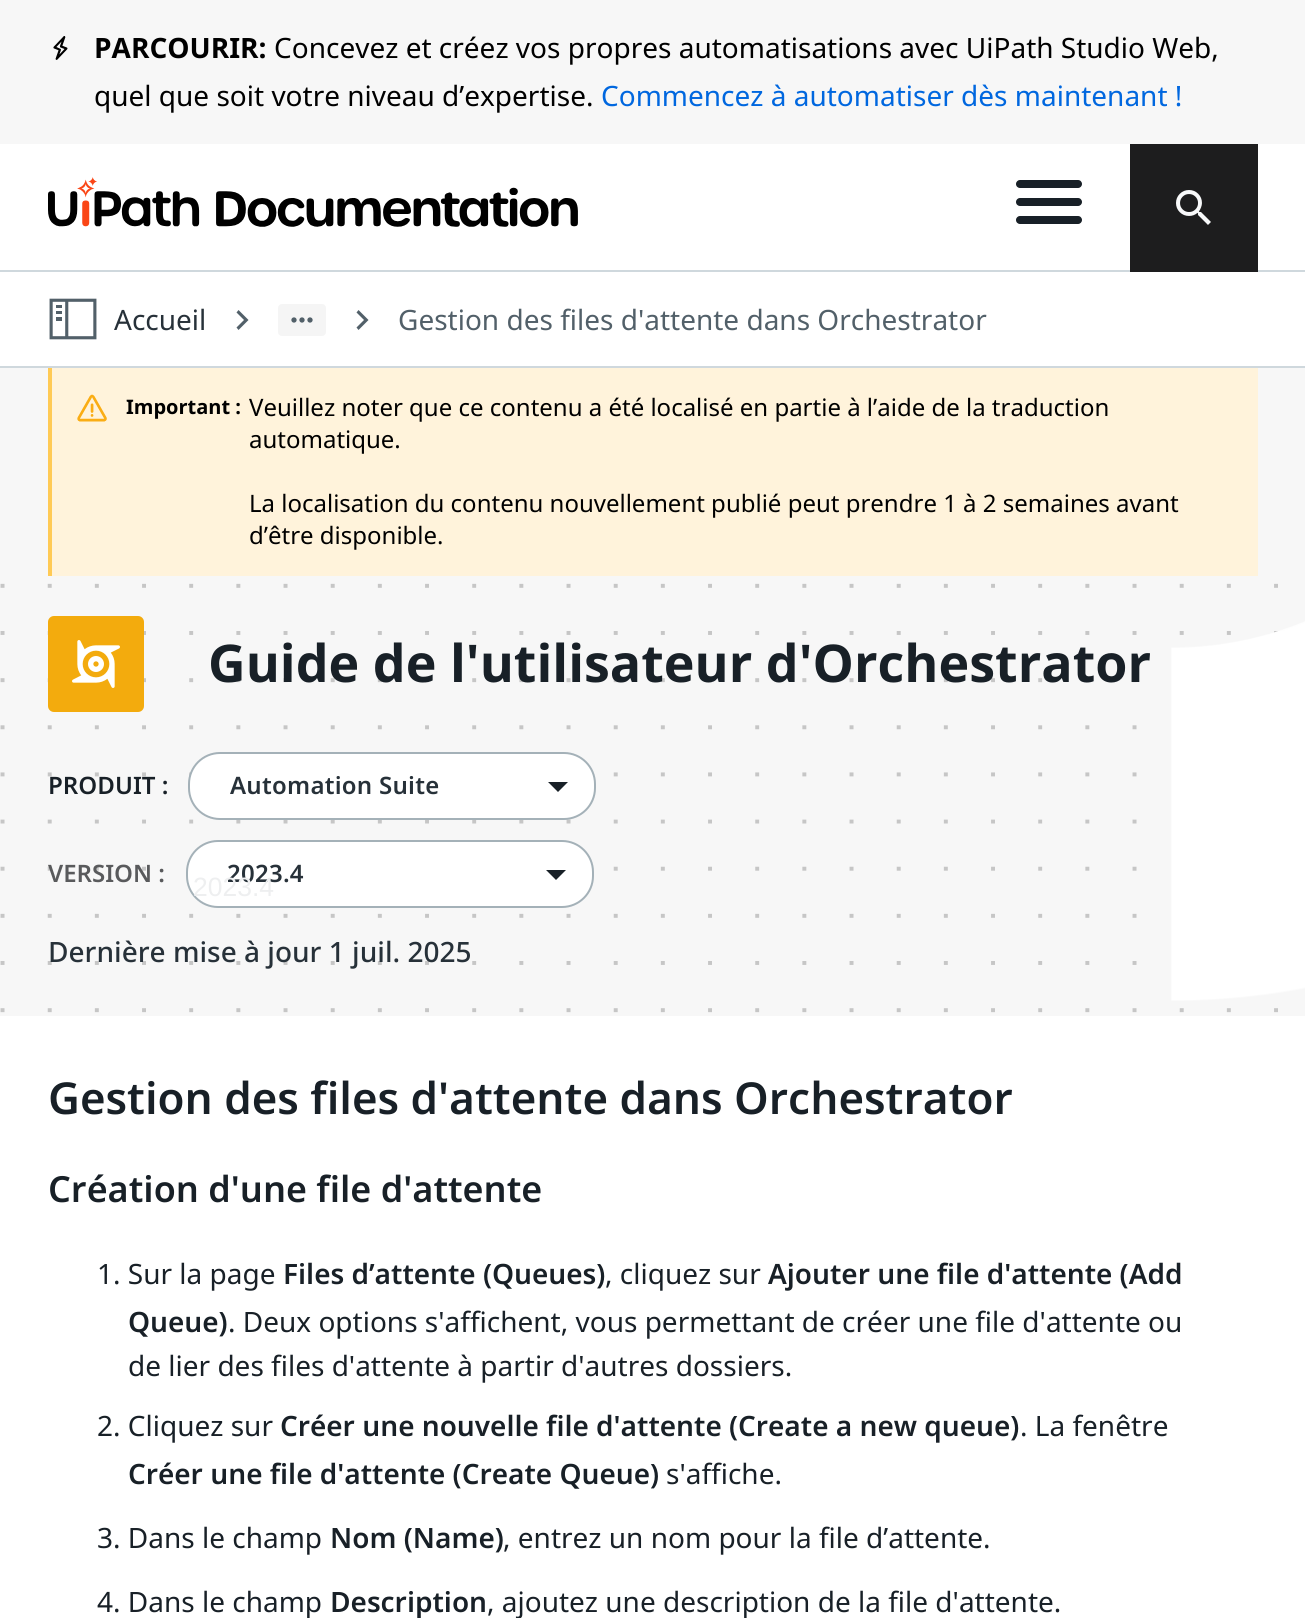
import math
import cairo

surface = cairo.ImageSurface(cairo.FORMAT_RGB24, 1305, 1618)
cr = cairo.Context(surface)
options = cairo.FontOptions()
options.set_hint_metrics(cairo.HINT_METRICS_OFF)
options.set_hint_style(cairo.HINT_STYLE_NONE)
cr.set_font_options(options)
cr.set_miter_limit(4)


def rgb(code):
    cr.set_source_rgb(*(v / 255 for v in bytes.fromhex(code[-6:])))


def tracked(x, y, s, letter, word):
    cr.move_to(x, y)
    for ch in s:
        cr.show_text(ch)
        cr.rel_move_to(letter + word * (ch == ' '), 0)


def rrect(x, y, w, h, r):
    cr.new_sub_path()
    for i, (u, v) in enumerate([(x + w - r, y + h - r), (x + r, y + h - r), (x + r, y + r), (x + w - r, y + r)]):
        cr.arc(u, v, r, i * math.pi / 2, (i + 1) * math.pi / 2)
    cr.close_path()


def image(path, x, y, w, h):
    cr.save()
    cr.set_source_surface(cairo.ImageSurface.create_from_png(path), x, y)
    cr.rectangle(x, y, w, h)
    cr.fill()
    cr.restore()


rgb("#ffffff")
cr.paint()
rgb("#f7f7f7")
cr.rectangle(0, 0, 1305, 144)
cr.fill()
image("img/1.png", 53, 36, 15, 24)
rgb("#cfd8dd")
cr.rectangle(0, 270, 1305, 2)
cr.fill()
image("img/2.png", 48, 177, 530, 50)
rgb("#182027")
rrect(1016, 180, 66, 8, 4)
cr.fill()
rrect(1016, 198, 66, 8, 4)
cr.fill()
rrect(1016, 216, 66, 8, 4)
cr.fill()
rgb("#1d1d1e")
cr.rectangle(1130, 144, 128, 128)
cr.fill()
image("img/3.png", 1176, 190, 35, 35)
rgb("#cfd8dd")
cr.rectangle(0, 366, 1305, 2)
cr.fill()
image("img/4.png", 49, 298, 48, 42)
rgb("#526069")
cr.new_path()
cr.move_to(238.5, 310)
cr.line_to(236.5, 312.5)
cr.line_to(244, 320)
cr.line_to(236.5, 327.5)
cr.line_to(238.5, 330)
cr.line_to(248.5, 320)
cr.close_path()
cr.fill()
rgb("#f5f5f5")
rrect(278, 304, 48, 32, 4)
cr.fill()
image("img/5.png", 291, 317, 22, 6)
rgb("#526069")
cr.new_path()
cr.move_to(358.5, 310)
cr.line_to(356.5, 312.5)
cr.line_to(364, 320)
cr.line_to(356.5, 327.5)
cr.line_to(358.5, 330)
cr.line_to(368.5, 320)
cr.close_path()
cr.fill()
for x, y, w, h, color in [
    (0, 368, 1305, 208, "#f7f7f7"),
    (52, 368, 1206, 208, "#fff3db"),
    (48, 368, 4, 208, "#ffca55"),
]:
    rgb(color)
    cr.rectangle(x, y, w, h)
    cr.fill()
image("img/6.png", 77, 394, 30, 28)
image("img/7.png", 0, 576, 1305, 440)
rgb("#f3ab0d")
rrect(48, 616, 96, 96, 6)
cr.fill()
image("img/8.png", 72, 640, 48, 48)
rgb("#ffffff")
rrect(189, 753, 406, 66, 31)
cr.fill_preserve()
rgb("#a4b1b8")
cr.stroke()
rgb("#182027")
cr.new_path()
cr.move_to(548, 782)
cr.line_to(558, 792)
cr.line_to(568, 782)
cr.close_path()
cr.fill()
rgb("#ffffff")
rrect(187, 841, 406, 66, 31)
cr.fill_preserve()
rgb("#a4b1b8")
cr.stroke()
rgb("#182027")
cr.new_path()
cr.move_to(546, 870)
cr.line_to(556, 880)
cr.line_to(566, 870)
cr.close_path()
cr.fill()
cr.select_font_face("Noto Sans", cairo.FONT_SLANT_NORMAL, cairo.FONT_WEIGHT_BOLD)
cr.set_font_size(28)
rgb("#000000")
cr.move_to(94, 58)
cr.show_text("PARCOURIR:")
cr.select_font_face("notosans")
cr.move_to(274, 58)
cr.show_text("Concevez et créez vos propres automatisations avec UiPath Studio Web,")
cr.move_to(94, 106)
cr.show_text("quel que soit votre niveau d’expertise.")
rgb("#0067df")
cr.move_to(601, 106)
cr.show_text("Commencez à automatiser dès maintenant !")
rgb("#273139")
cr.move_to(114, 330)
cr.show_text("Accueil")
rgb("#526069")
cr.move_to(398, 330)
cr.show_text("Gestion des files d'attente dans Orchestrator")
cr.select_font_face("Noto Sans", cairo.FONT_SLANT_NORMAL, cairo.FONT_WEIGHT_BOLD)
cr.set_font_size(20)
rgb("#000000")
cr.move_to(126, 414)
cr.show_text("Important :")
cr.select_font_face("notosans")
cr.set_font_size(24)
for x, y, s in [
    (249, 416, "Veuillez noter que ce contenu a été localisé en partie à l’aide de la traduction"),
    (249, 448, "automatique."),
    (249, 512, "La localisation du contenu nouvellement publié peut prendre 1 à 2 semaines avant"),
    (249, 544, "d’être disponible."),
]:
    cr.move_to(x, y)
    cr.show_text(s)
cr.select_font_face("Noto Sans", cairo.FONT_SLANT_NORMAL, cairo.FONT_WEIGHT_BOLD)
cr.set_font_size(52)
rgb("#182027")
cr.move_to(208, 682)
cr.show_text("Guide de l'utilisateur d'Orchestrator")
cr.select_font_face("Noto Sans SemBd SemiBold")
cr.set_font_size(24)
cr.move_to(48, 794)
cr.show_text("PRODUIT :")
rgb("#273139")
tracked(230, 794, "Automation Suite", 0.25, 0)
rgb("#595a5c")
cr.move_to(48, 882)
cr.show_text("VERSION :")
rgb("#273139")
tracked(227, 882, "2023.4", 0.25, 0)
cr.select_font_face("Liberation Sans")
cr.set_font_size(26.5)
rgb("#eeeff0")
cr.move_to(193, 896)
cr.show_text("2023.4")
cr.select_font_face("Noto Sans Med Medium")
cr.set_font_size(28)
rgb("#273139")
cr.move_to(48, 962)
cr.show_text("Dernière mise à jour 1 juil. 2025")
cr.select_font_face("Noto Sans SemBd SemiBold")
cr.set_font_size(44)
rgb("#182027")
cr.move_to(48, 1114)
cr.show_text("Gestion des files d'attente dans Orchestrator")
cr.set_font_size(36)
cr.move_to(48, 1202)
cr.show_text("Création d'une file d'attente")
cr.select_font_face("notosans")
cr.set_font_size(28)
cr.move_to(97, 1284)
cr.show_text("1. Sur la page")
cr.select_font_face("Noto Sans SemBd SemiBold")
cr.move_to(283, 1284)
cr.show_text("Files d’attente (Queues)")
cr.select_font_face("notosans")
cr.move_to(605, 1284)
cr.show_text(", cliquez sur")
cr.select_font_face("Noto Sans SemBd SemiBold")
cr.move_to(768, 1284)
cr.show_text("Ajouter une file d'attente (Add")
cr.move_to(128, 1332)
cr.show_text("Queue)")
cr.select_font_face("notosans")
for x, y, s in [
    (228, 1332, ". Deux options s'affichent, vous permettant de créer une file d'attente ou"),
    (128, 1376, "de lier des files d'attente à partir d'autres dossiers."),
    (97, 1436, "2. Cliquez sur"),
]:
    cr.move_to(x, y)
    cr.show_text(s)
cr.select_font_face("Noto Sans SemBd SemiBold")
cr.move_to(280, 1436)
cr.show_text("Créer une nouvelle file d'attente (Create a new queue)")
cr.select_font_face("notosans")
cr.move_to(1020, 1436)
cr.show_text(". La fenêtre")
cr.select_font_face("Noto Sans SemBd SemiBold")
cr.move_to(128, 1484)
cr.show_text("Créer une file d'attente (Create Queue)")
cr.select_font_face("notosans")
cr.move_to(666, 1484)
cr.show_text("s'affiche.")
cr.move_to(97, 1548)
cr.show_text("3. Dans le champ")
cr.select_font_face("Noto Sans SemBd SemiBold")
cr.move_to(330, 1548)
cr.show_text("Nom (Name)")
cr.select_font_face("notosans")
cr.move_to(503, 1548)
cr.show_text(", entrez un nom pour la file d’attente.")
cr.move_to(97, 1612)
cr.show_text("4. Dans le champ")
cr.select_font_face("Noto Sans SemBd SemiBold")
cr.move_to(330, 1612)
cr.show_text("Description")
cr.select_font_face("notosans")
cr.move_to(487, 1612)
cr.show_text(", ajoutez une description de la file d'attente.")
surface.write_to_png("page.png")
